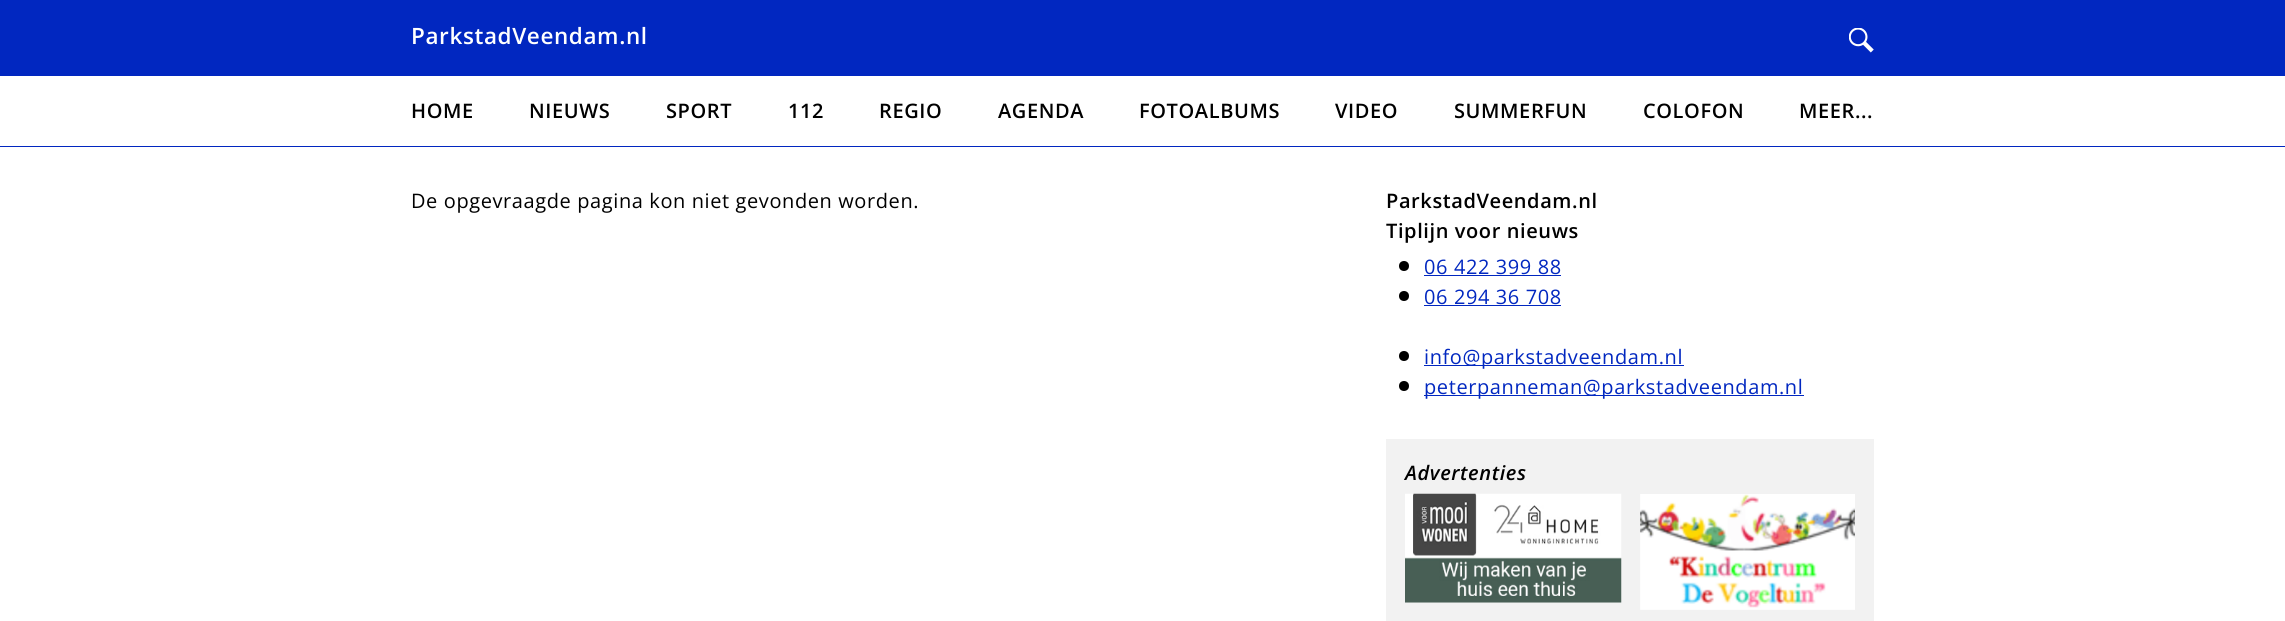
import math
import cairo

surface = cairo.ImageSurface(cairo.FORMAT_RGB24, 2285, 621)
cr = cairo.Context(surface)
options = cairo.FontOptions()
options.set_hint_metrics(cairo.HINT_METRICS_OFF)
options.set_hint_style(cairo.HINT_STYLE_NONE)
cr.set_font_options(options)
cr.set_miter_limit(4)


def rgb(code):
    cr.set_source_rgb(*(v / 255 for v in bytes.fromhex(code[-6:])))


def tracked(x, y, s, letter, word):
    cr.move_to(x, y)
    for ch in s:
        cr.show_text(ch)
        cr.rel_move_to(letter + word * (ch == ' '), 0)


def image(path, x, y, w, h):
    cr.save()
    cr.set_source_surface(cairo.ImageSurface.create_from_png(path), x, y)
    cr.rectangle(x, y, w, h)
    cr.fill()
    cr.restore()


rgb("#ffffff")
cr.paint()
rgb("#0127c0")
cr.rectangle(0, 0, 2285, 76)
cr.fill()
image("img/1.png", 1849, 28, 25, 25)
cr.rectangle(0, 146, 2285, 1)
cr.fill()
rgb("#000000")
cr.arc(1404, 266, 5, 0, 2 * math.pi)
cr.fill()
rgb("#0127c0")
cr.rectangle(1424, 275, 137, 1)
cr.fill()
rgb("#000000")
cr.arc(1404, 296, 5, 0, 2 * math.pi)
cr.fill()
rgb("#0127c0")
cr.rectangle(1424, 305, 137, 1)
cr.fill()
rgb("#000000")
cr.arc(1404, 356, 5, 0, 2 * math.pi)
cr.fill()
rgb("#0127c0")
cr.rectangle(1424, 365, 260, 1)
cr.fill()
rgb("#000000")
cr.arc(1404, 386, 5, 0, 2 * math.pi)
cr.fill()
rgb("#0127c0")
cr.rectangle(1424, 395, 380, 1)
cr.fill()
rgb("#f2f2f2")
cr.rectangle(1386, 439, 488, 182)
cr.fill()
image("img/2.png", 1405, 493, 217, 110)
image("img/3.png", 1640, 494, 215, 116)
cr.select_font_face("Open Sans SemiBold")
cr.set_font_size(22.5)
rgb("#ffffff")
tracked(411, 44, "ParkstadVeendam.nl", 0.6, 0)
cr.set_font_size(20)
rgb("#000000")
for x, y, s in [
    (411, 118, "HOME"),
    (529, 118, "NIEUWS"),
    (666, 118, "SPORT"),
    (788, 118, "112"),
    (879, 118, "REGIO"),
    (998, 118, "AGENDA"),
    (1139, 118, "FOTOALBUMS"),
    (1335, 118, "VIDEO"),
    (1454, 118, "SUMMERFUN"),
    (1643, 118, "COLOFON"),
    (1799, 118, "MEER..."),
]:
    tracked(x, y, s, 0.6, 0)
cr.select_font_face("Open Sans")
tracked(411, 208, "De opgevraagde pagina kon niet gevonden worden.", 0.6, 0)
cr.select_font_face("Open Sans SemiBold")
tracked(1386, 208, "ParkstadVeendam.nl", 0.6, 0)
tracked(1386, 238, "Tiplijn voor nieuws", 0.6, 0)
cr.select_font_face("Open Sans")
rgb("#0127c0")
for x, y, s in [
    (1424, 274, "06 422 399 88"),
    (1424, 304, "06 294 36 708"),
    (1424, 364, "info@parkstadveendam.nl"),
    (1424, 394, "peterpanneman@parkstadveendam.nl"),
]:
    tracked(x, y, s, 0.6, 0)
cr.select_font_face("Open Sans SemiBold", cairo.FONT_SLANT_ITALIC)
rgb("#000000")
tracked(1405, 480, "Advertenties", 0.6, 0)
surface.write_to_png("page.png")
